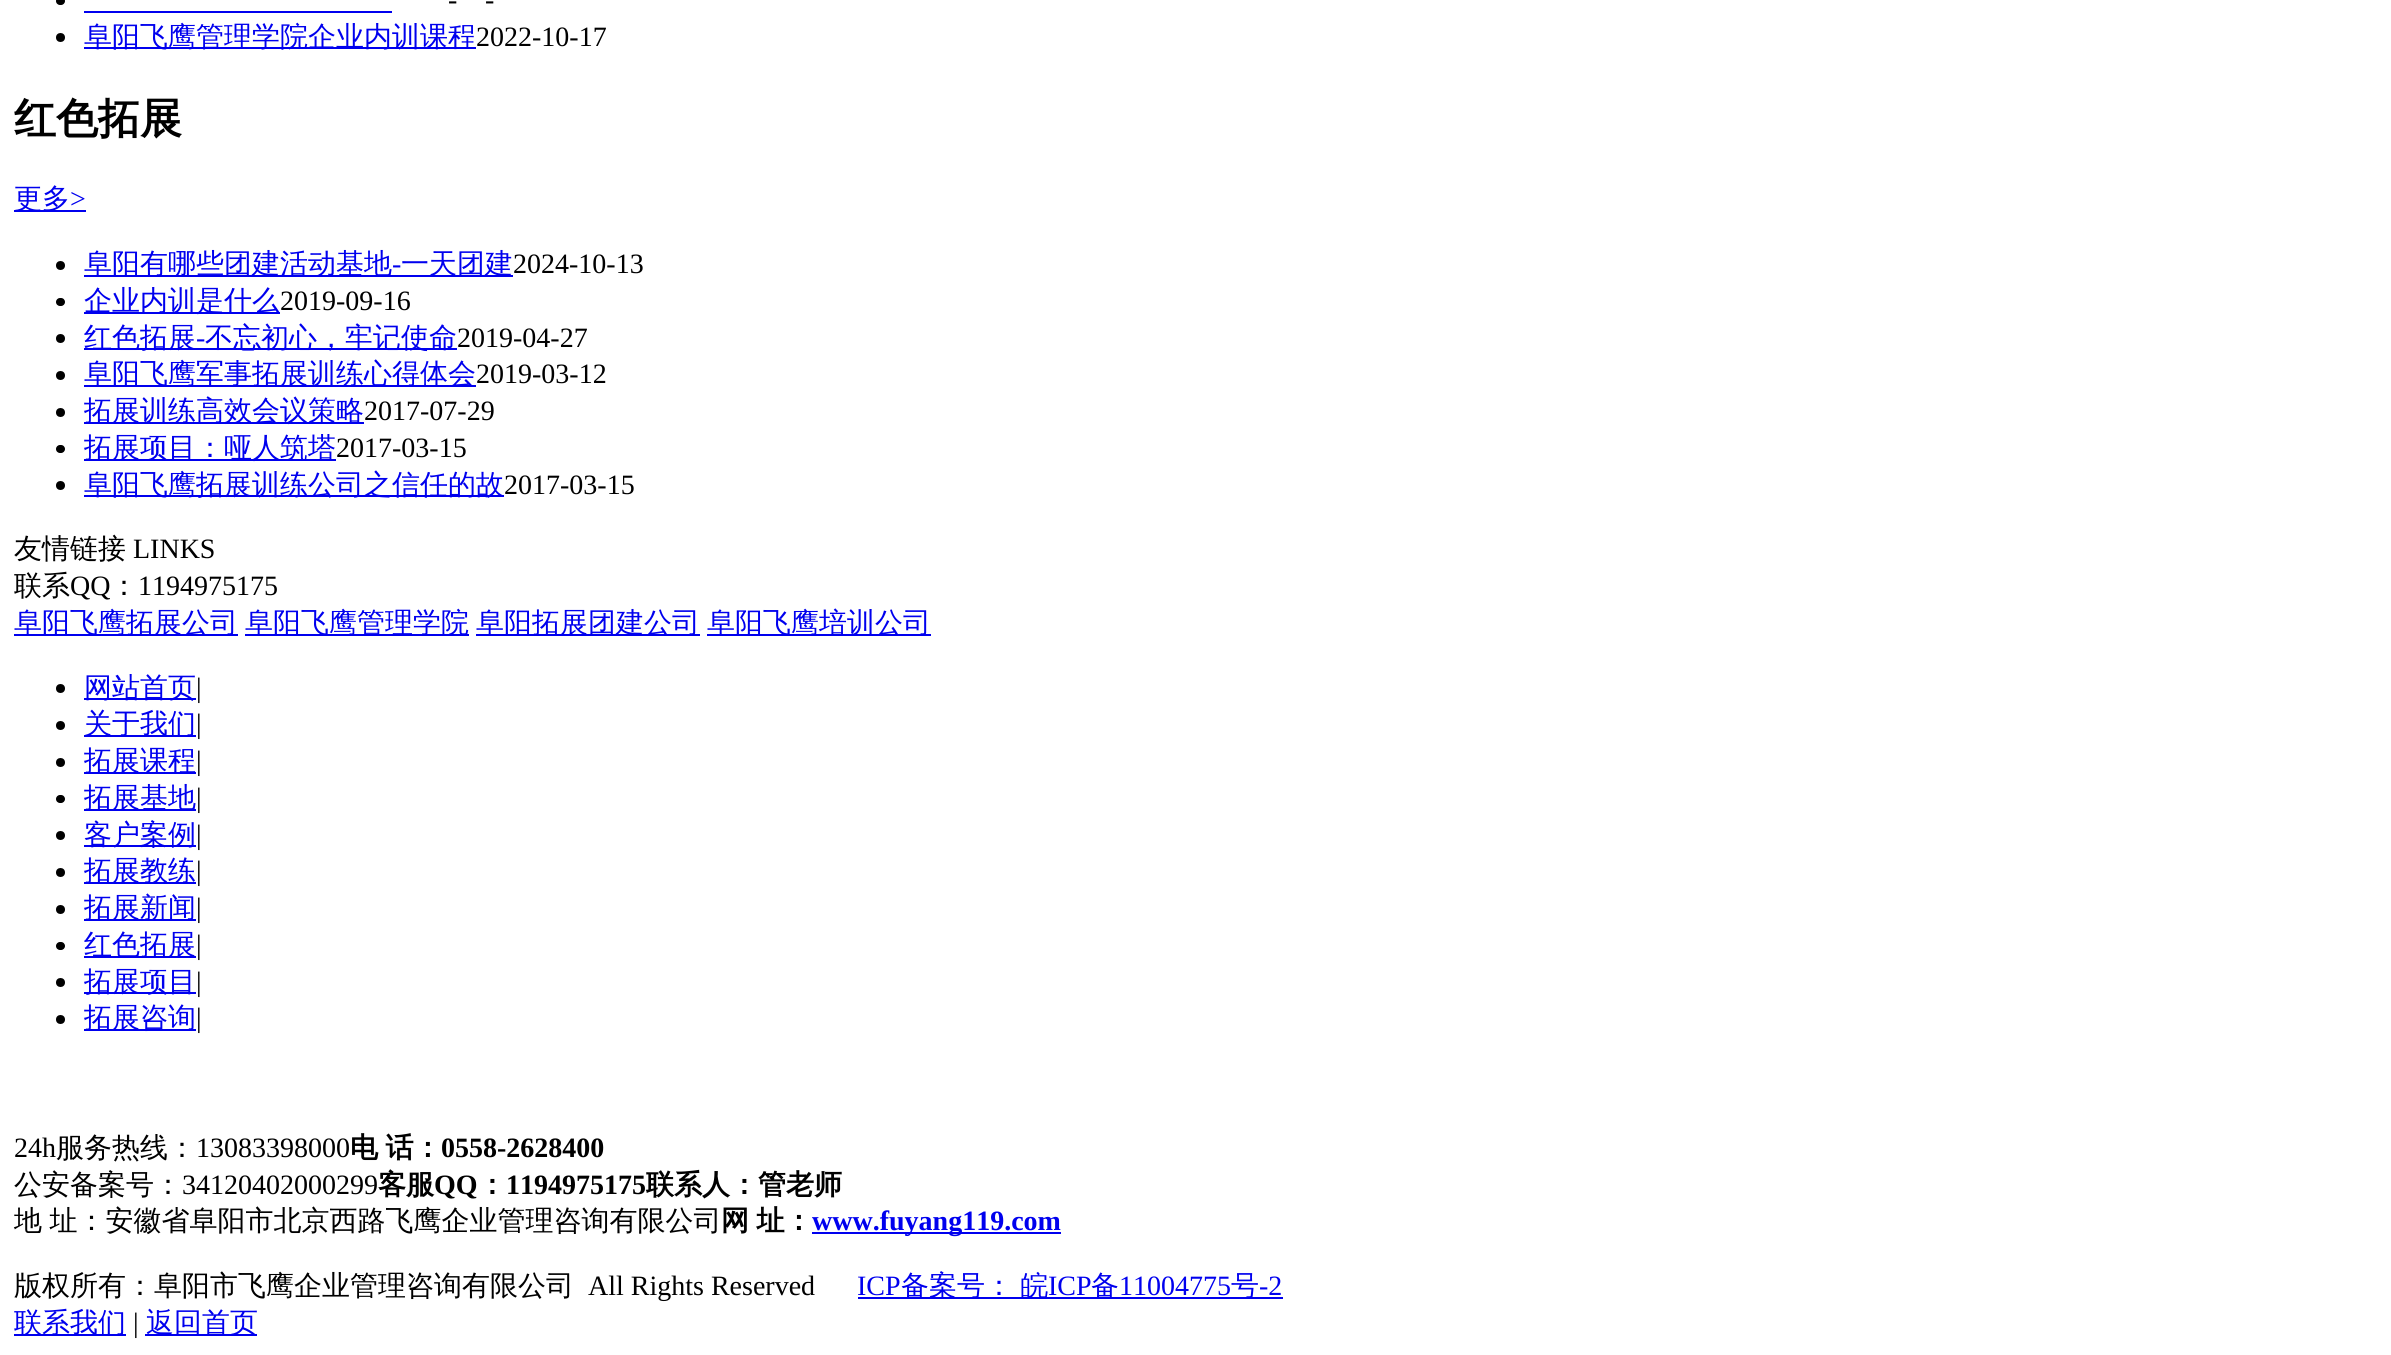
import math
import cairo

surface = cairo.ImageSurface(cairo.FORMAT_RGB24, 2391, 1355)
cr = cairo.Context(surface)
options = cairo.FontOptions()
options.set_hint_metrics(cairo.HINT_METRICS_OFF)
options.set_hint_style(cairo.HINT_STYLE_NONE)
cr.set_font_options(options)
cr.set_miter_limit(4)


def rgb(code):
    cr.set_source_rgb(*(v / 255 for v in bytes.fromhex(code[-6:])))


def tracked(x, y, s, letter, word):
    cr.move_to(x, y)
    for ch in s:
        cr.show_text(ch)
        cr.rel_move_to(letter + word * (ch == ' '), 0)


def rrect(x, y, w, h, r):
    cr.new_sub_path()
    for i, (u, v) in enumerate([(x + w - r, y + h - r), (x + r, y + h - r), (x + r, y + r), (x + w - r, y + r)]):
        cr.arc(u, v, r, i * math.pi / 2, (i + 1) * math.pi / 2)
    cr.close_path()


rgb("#ffffff")
cr.paint()
rgb("#000000")
rrect(56, -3, 9, 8, 4)
cr.fill()
rgb("#0000ee")
cr.rectangle(84, 11, 308, 2)
cr.fill()
rgb("#000000")
cr.arc(60.5, 37.5, 4.5, 0, 2 * math.pi)
cr.fill()
rgb("#0000ee")
cr.rectangle(84, 47, 392, 2)
cr.fill()
cr.rectangle(14, 210, 72, 2)
cr.fill()
rgb("#000000")
cr.arc(60.5, 265.5, 4.5, 0, 2 * math.pi)
cr.fill()
rgb("#0000ee")
cr.rectangle(84, 275, 429, 2)
cr.fill()
rgb("#000000")
rrect(56, 298, 9, 8, 4)
cr.fill()
rgb("#0000ee")
cr.rectangle(84, 312, 196, 2)
cr.fill()
rgb("#000000")
cr.arc(60.5, 338.5, 4.5, 0, 2 * math.pi)
cr.fill()
rgb("#0000ee")
cr.rectangle(84, 348, 373, 2)
cr.fill()
rgb("#000000")
cr.arc(60.5, 375.5, 4.5, 0, 2 * math.pi)
cr.fill()
rgb("#0000ee")
cr.rectangle(84, 385, 392, 2)
cr.fill()
rgb("#000000")
cr.arc(60.5, 412.5, 4.5, 0, 2 * math.pi)
cr.fill()
rgb("#0000ee")
cr.rectangle(84, 422, 280, 2)
cr.fill()
rgb("#000000")
rrect(56, 445, 9, 8, 4)
cr.fill()
rgb("#0000ee")
cr.rectangle(84, 459, 252, 2)
cr.fill()
rgb("#000000")
cr.arc(60.5, 485.5, 4.5, 0, 2 * math.pi)
cr.fill()
for x, y, w, h, color in [
    (84, 495, 420, 2, "#0000ee"),
    (14, 634, 224, 2, "#0000ee"),
    (245, 634, 224, 2, "#0000ee"),
    (476, 634, 224, 2, "#0000ee"),
    (707, 634, 224, 2, "#0000ee"),
]:
    rgb(color)
    cr.rectangle(x, y, w, h)
    cr.fill()
rgb("#000000")
cr.arc(60.5, 688.5, 4.5, 0, 2 * math.pi)
cr.fill()
rgb("#0000ee")
cr.rectangle(84, 698, 112, 2)
cr.fill()
rgb("#000000")
cr.arc(60.5, 725.5, 4.5, 0, 2 * math.pi)
cr.fill()
rgb("#0000ee")
cr.rectangle(84, 735, 112, 2)
cr.fill()
rgb("#000000")
cr.arc(60.5, 762.5, 4.5, 0, 2 * math.pi)
cr.fill()
rgb("#0000ee")
cr.rectangle(84, 772, 112, 2)
cr.fill()
rgb("#000000")
rrect(56, 795, 9, 8, 4)
cr.fill()
rgb("#0000ee")
cr.rectangle(84, 809, 112, 2)
cr.fill()
rgb("#000000")
cr.arc(60.5, 835.5, 4.5, 0, 2 * math.pi)
cr.fill()
rgb("#0000ee")
cr.rectangle(84, 845, 112, 2)
cr.fill()
rgb("#000000")
cr.arc(60.5, 872.5, 4.5, 0, 2 * math.pi)
cr.fill()
rgb("#0000ee")
cr.rectangle(84, 882, 112, 2)
cr.fill()
rgb("#000000")
cr.arc(60.5, 909.5, 4.5, 0, 2 * math.pi)
cr.fill()
rgb("#0000ee")
cr.rectangle(84, 919, 112, 2)
cr.fill()
rgb("#000000")
rrect(56, 942, 9, 8, 4)
cr.fill()
rgb("#0000ee")
cr.rectangle(84, 956, 112, 2)
cr.fill()
rgb("#000000")
cr.arc(60.5, 982.5, 4.5, 0, 2 * math.pi)
cr.fill()
rgb("#0000ee")
cr.rectangle(84, 992, 112, 2)
cr.fill()
rgb("#000000")
cr.arc(60.5, 1019.5, 4.5, 0, 2 * math.pi)
cr.fill()
for x, y, w, h, color in [
    (84, 1029, 112, 2, "#0000ee"),
    (812, 1232, 249, 2, "#0000ee"),
    (858, 1297, 425, 2, "#0000ee"),
    (14, 1334, 112, 2, "#0000ee"),
    (145, 1334, 112, 2, "#0000ee"),
]:
    rgb(color)
    cr.rectangle(x, y, w, h)
    cr.fill()
cr.select_font_face("Liberation Serif")
cr.set_font_size(28)
rgb("#000000")
cr.move_to(448, 9)
cr.show_text("-")
cr.move_to(485, 9)
cr.show_text("-")
cr.select_font_face("WenQuanYi Zen Hei Medium")
rgb("#0000ee")
cr.move_to(84, 46)
cr.show_text("阜阳飞鹰管理学院企业内训课程")
cr.select_font_face("Liberation Serif")
rgb("#000000")
cr.move_to(476, 46)
cr.show_text("2022-10-17")
cr.select_font_face("WenQuanYi Zen Hei", cairo.FONT_SLANT_NORMAL, cairo.FONT_WEIGHT_BOLD)
cr.set_font_size(42)
cr.move_to(14, 133)
cr.show_text("红色拓展")
cr.select_font_face("WenQuanYi Zen Hei Medium")
cr.set_font_size(28)
rgb("#0000ee")
cr.move_to(14, 208)
cr.show_text("更多")
cr.select_font_face("Liberation Serif")
cr.move_to(70, 208)
cr.show_text(">")
cr.select_font_face("WenQuanYi Zen Hei Medium")
cr.move_to(84, 273)
cr.show_text("阜阳有哪些团建活动基地")
cr.select_font_face("Liberation Serif")
cr.move_to(392, 273)
cr.show_text("-")
cr.select_font_face("WenQuanYi Zen Hei Medium")
cr.move_to(401, 273)
cr.show_text("一天团建")
cr.select_font_face("Liberation Serif")
rgb("#000000")
cr.move_to(513, 273)
cr.show_text("2024-10-13")
cr.select_font_face("WenQuanYi Zen Hei Medium")
rgb("#0000ee")
cr.move_to(84, 310)
cr.show_text("企业内训是什么")
cr.select_font_face("Liberation Serif")
rgb("#000000")
cr.move_to(280, 310)
cr.show_text("2019-09-16")
cr.select_font_face("WenQuanYi Zen Hei Medium")
rgb("#0000ee")
cr.move_to(84, 347)
cr.show_text("红色拓展")
cr.select_font_face("Liberation Serif")
cr.move_to(196, 347)
cr.show_text("-")
cr.select_font_face("WenQuanYi Zen Hei Medium")
cr.move_to(205, 347)
cr.show_text("不忘初心，牢记使命")
cr.select_font_face("Liberation Serif")
rgb("#000000")
cr.move_to(457, 347)
cr.show_text("2019-04-27")
cr.select_font_face("WenQuanYi Zen Hei Medium")
rgb("#0000ee")
cr.move_to(84, 383)
cr.show_text("阜阳飞鹰军事拓展训练心得体会")
cr.select_font_face("Liberation Serif")
rgb("#000000")
cr.move_to(476, 383)
cr.show_text("2019-03-12")
cr.select_font_face("WenQuanYi Zen Hei Medium")
rgb("#0000ee")
cr.move_to(84, 420)
cr.show_text("拓展训练高效会议策略")
cr.select_font_face("Liberation Serif")
rgb("#000000")
cr.move_to(364, 420)
cr.show_text("2017-07-29")
cr.select_font_face("WenQuanYi Zen Hei Medium")
rgb("#0000ee")
cr.move_to(84, 457)
cr.show_text("拓展项目：哑人筑塔")
cr.select_font_face("Liberation Serif")
rgb("#000000")
cr.move_to(336, 457)
cr.show_text("2017-03-15")
cr.select_font_face("WenQuanYi Zen Hei Medium")
rgb("#0000ee")
cr.move_to(84, 494)
cr.show_text("阜阳飞鹰拓展训练公司之信任的故")
cr.select_font_face("Liberation Serif")
rgb("#000000")
cr.move_to(504, 494)
cr.show_text("2017-03-15")
cr.select_font_face("WenQuanYi Zen Hei Medium")
cr.move_to(14, 558)
cr.show_text("友情链接")
cr.select_font_face("Liberation Serif")
cr.move_to(133, 558)
cr.show_text("LINKS")
cr.select_font_face("WenQuanYi Zen Hei Medium")
cr.move_to(14, 595)
cr.show_text("联系")
cr.select_font_face("Liberation Serif")
cr.move_to(70, 595)
cr.show_text("QQ")
cr.select_font_face("WenQuanYi Zen Hei Medium")
cr.move_to(110, 595)
cr.show_text("：")
cr.select_font_face("Liberation Serif")
cr.move_to(138, 595)
cr.show_text("1194975175")
cr.select_font_face("WenQuanYi Zen Hei Medium")
rgb("#0000ee")
for x, y, s in [
    (14, 632, "阜阳飞鹰拓展公司"),
    (245, 632, "阜阳飞鹰管理学院"),
    (476, 632, "阜阳拓展团建公司"),
    (707, 632, "阜阳飞鹰培训公司"),
    (84, 697, "网站首页"),
]:
    cr.move_to(x, y)
    cr.show_text(s)
cr.select_font_face("Liberation Serif")
rgb("#000000")
cr.move_to(196, 697)
cr.show_text("|")
cr.select_font_face("WenQuanYi Zen Hei Medium")
rgb("#0000ee")
cr.move_to(84, 733)
cr.show_text("关于我们")
cr.select_font_face("Liberation Serif")
rgb("#000000")
cr.move_to(196, 733)
cr.show_text("|")
cr.select_font_face("WenQuanYi Zen Hei Medium")
rgb("#0000ee")
cr.move_to(84, 770)
cr.show_text("拓展课程")
cr.select_font_face("Liberation Serif")
rgb("#000000")
cr.move_to(196, 770)
cr.show_text("|")
cr.select_font_face("WenQuanYi Zen Hei Medium")
rgb("#0000ee")
cr.move_to(84, 807)
cr.show_text("拓展基地")
cr.select_font_face("Liberation Serif")
rgb("#000000")
cr.move_to(196, 807)
cr.show_text("|")
cr.select_font_face("WenQuanYi Zen Hei Medium")
rgb("#0000ee")
cr.move_to(84, 844)
cr.show_text("客户案例")
cr.select_font_face("Liberation Serif")
rgb("#000000")
cr.move_to(196, 844)
cr.show_text("|")
cr.select_font_face("WenQuanYi Zen Hei Medium")
rgb("#0000ee")
cr.move_to(84, 880)
cr.show_text("拓展教练")
cr.select_font_face("Liberation Serif")
rgb("#000000")
cr.move_to(196, 880)
cr.show_text("|")
cr.select_font_face("WenQuanYi Zen Hei Medium")
rgb("#0000ee")
cr.move_to(84, 917)
cr.show_text("拓展新闻")
cr.select_font_face("Liberation Serif")
rgb("#000000")
cr.move_to(196, 917)
cr.show_text("|")
cr.select_font_face("WenQuanYi Zen Hei Medium")
rgb("#0000ee")
cr.move_to(84, 954)
cr.show_text("红色拓展")
cr.select_font_face("Liberation Serif")
rgb("#000000")
cr.move_to(196, 954)
cr.show_text("|")
cr.select_font_face("WenQuanYi Zen Hei Medium")
rgb("#0000ee")
cr.move_to(84, 991)
cr.show_text("拓展项目")
cr.select_font_face("Liberation Serif")
rgb("#000000")
cr.move_to(196, 991)
cr.show_text("|")
cr.select_font_face("WenQuanYi Zen Hei Medium")
rgb("#0000ee")
cr.move_to(84, 1027)
cr.show_text("拓展咨询")
cr.select_font_face("Liberation Serif")
rgb("#000000")
cr.move_to(196, 1027)
cr.show_text("|")
cr.move_to(14, 1157)
cr.show_text("24h")
cr.select_font_face("WenQuanYi Zen Hei Medium")
cr.move_to(56, 1157)
cr.show_text("服务热线：")
cr.select_font_face("Liberation Serif")
cr.move_to(196, 1157)
cr.show_text("13083398000")
cr.select_font_face("WenQuanYi Zen Hei", cairo.FONT_SLANT_NORMAL, cairo.FONT_WEIGHT_BOLD)
tracked(350, 1157, "电 话：", 0, -1)
cr.select_font_face("Liberation Serif", cairo.FONT_SLANT_NORMAL, cairo.FONT_WEIGHT_BOLD)
cr.move_to(441, 1157)
cr.show_text("0558-2628400")
cr.select_font_face("WenQuanYi Zen Hei Medium")
cr.move_to(14, 1194)
cr.show_text("公安备案号：")
cr.select_font_face("Liberation Serif")
cr.move_to(182, 1194)
cr.show_text("34120402000299")
cr.select_font_face("WenQuanYi Zen Hei", cairo.FONT_SLANT_NORMAL, cairo.FONT_WEIGHT_BOLD)
cr.move_to(378, 1194)
cr.show_text("客服")
cr.select_font_face("Liberation Serif", cairo.FONT_SLANT_NORMAL, cairo.FONT_WEIGHT_BOLD)
cr.move_to(434, 1194)
cr.show_text("QQ")
cr.select_font_face("WenQuanYi Zen Hei", cairo.FONT_SLANT_NORMAL, cairo.FONT_WEIGHT_BOLD)
cr.move_to(478, 1194)
cr.show_text("：")
cr.select_font_face("Liberation Serif", cairo.FONT_SLANT_NORMAL, cairo.FONT_WEIGHT_BOLD)
cr.move_to(506, 1194)
cr.show_text("1194975175")
cr.select_font_face("WenQuanYi Zen Hei", cairo.FONT_SLANT_NORMAL, cairo.FONT_WEIGHT_BOLD)
cr.move_to(646, 1194)
cr.show_text("联系人：管老师")
cr.select_font_face("WenQuanYi Zen Hei Medium")
tracked(14, 1230, "地 址：安徽省阜阳市北京西路飞鹰企业管理咨询有限公司", 0, -1)
cr.select_font_face("WenQuanYi Zen Hei", cairo.FONT_SLANT_NORMAL, cairo.FONT_WEIGHT_BOLD)
tracked(721, 1230, "网 址：", 0, -1)
cr.select_font_face("Liberation Serif", cairo.FONT_SLANT_NORMAL, cairo.FONT_WEIGHT_BOLD)
rgb("#0000ee")
cr.move_to(812, 1230)
cr.show_text("www.fuyang119.com")
cr.select_font_face("WenQuanYi Zen Hei Medium")
rgb("#000000")
cr.move_to(14, 1295)
cr.show_text("版权所有：阜阳市飞鹰企业管理咨询有限公司")
cr.select_font_face("Liberation Serif")
cr.move_to(588, 1295)
cr.show_text("All Rights Reserved")
rgb("#0000ee")
cr.move_to(857, 1295)
cr.show_text("ICP")
cr.select_font_face("WenQuanYi Zen Hei Medium")
tracked(901, 1295, "备案号： 皖", 0, -1)
cr.select_font_face("Liberation Serif")
cr.move_to(1048, 1295)
cr.show_text("ICP")
cr.select_font_face("WenQuanYi Zen Hei Medium")
cr.move_to(1091, 1295)
cr.show_text("备")
cr.select_font_face("Liberation Serif")
cr.move_to(1119, 1295)
cr.show_text("11004775")
cr.select_font_face("WenQuanYi Zen Hei Medium")
cr.move_to(1231, 1295)
cr.show_text("号")
cr.select_font_face("Liberation Serif")
cr.move_to(1259, 1295)
cr.show_text("-2")
cr.select_font_face("WenQuanYi Zen Hei Medium")
cr.move_to(14, 1332)
cr.show_text("联系我们")
cr.select_font_face("Liberation Serif")
rgb("#000000")
cr.move_to(133, 1332)
cr.show_text("|")
cr.select_font_face("WenQuanYi Zen Hei Medium")
rgb("#0000ee")
cr.move_to(146, 1332)
cr.show_text("返回首页")
surface.write_to_png("page.png")
